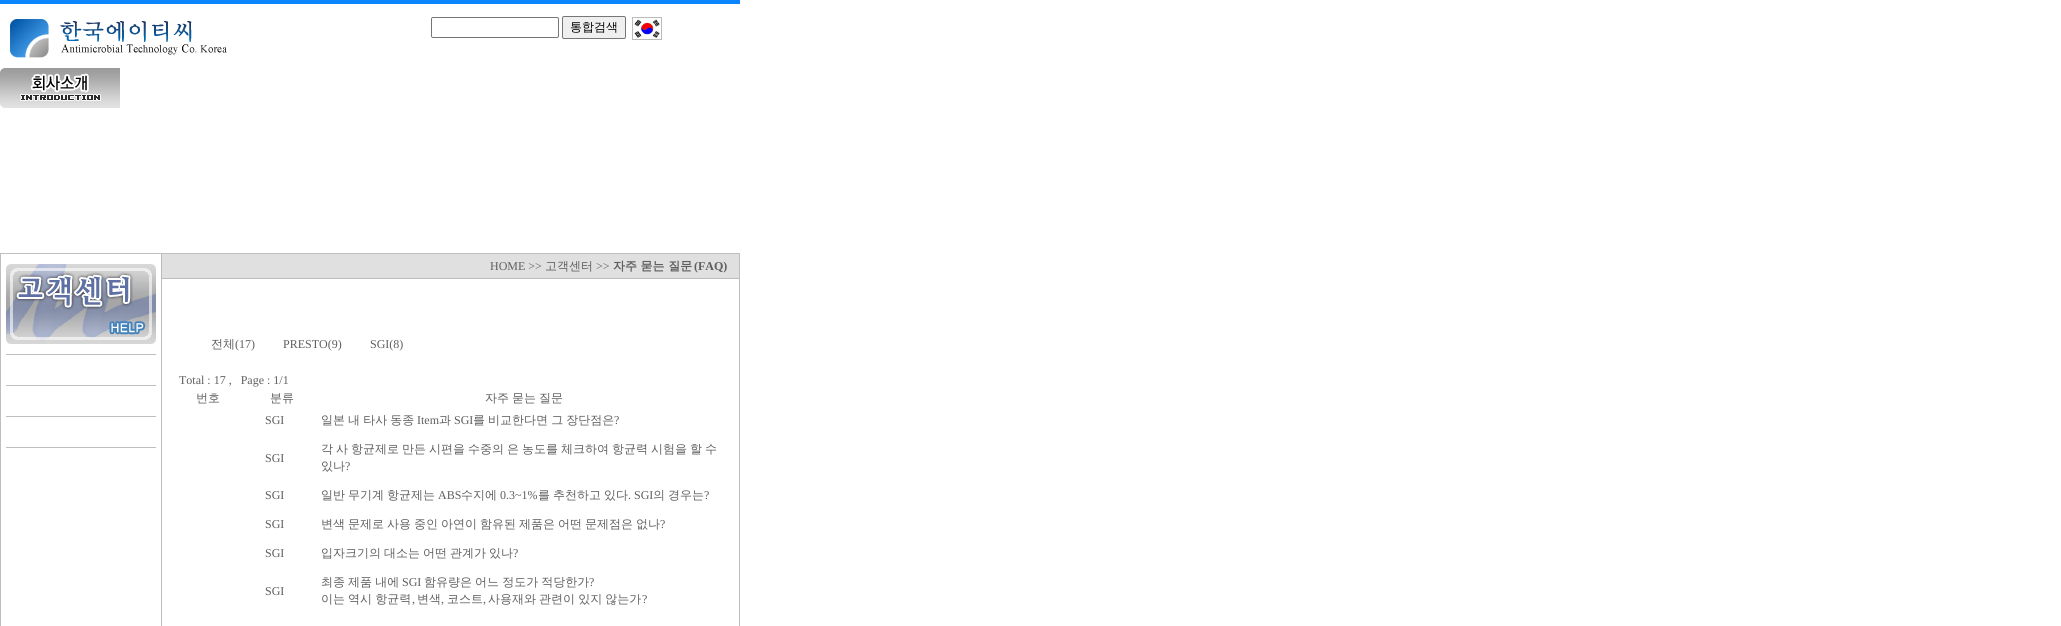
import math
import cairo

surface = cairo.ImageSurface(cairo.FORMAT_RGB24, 2061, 626)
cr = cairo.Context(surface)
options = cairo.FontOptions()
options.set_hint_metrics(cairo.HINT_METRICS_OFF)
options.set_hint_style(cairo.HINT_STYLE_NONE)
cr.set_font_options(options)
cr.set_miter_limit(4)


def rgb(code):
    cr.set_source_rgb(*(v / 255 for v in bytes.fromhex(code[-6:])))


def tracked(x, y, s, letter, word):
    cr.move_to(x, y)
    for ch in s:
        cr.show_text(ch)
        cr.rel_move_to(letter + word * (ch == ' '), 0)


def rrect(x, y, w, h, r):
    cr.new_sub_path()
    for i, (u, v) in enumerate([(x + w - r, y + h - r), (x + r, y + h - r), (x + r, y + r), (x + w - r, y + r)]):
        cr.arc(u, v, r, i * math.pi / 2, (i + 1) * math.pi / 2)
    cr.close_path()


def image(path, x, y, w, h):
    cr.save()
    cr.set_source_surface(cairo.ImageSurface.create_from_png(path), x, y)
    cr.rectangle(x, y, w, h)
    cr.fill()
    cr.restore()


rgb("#ffffff")
cr.paint()
rgb("#0b85ff")
cr.rectangle(0, 0, 740, 4)
cr.fill()
image("img/1.png", 10, 19, 217, 39)
rrect(431.5, 17.5, 127, 20, 1.5)
rgb("#767676")
cr.set_line_width(1)
cr.stroke()
rgb("#efefef")
rrect(562.5, 16.5, 63, 22, 1.5)
cr.fill_preserve()
rgb("#767676")
cr.stroke()
image("img/2.png", 632, 17, 30, 23)
image("img/3.png", 0, 68, 120, 40)
cr.rectangle(0.5, 253.5, 739, 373)
rgb("#bdbebd")
cr.stroke()
rgb("#bcbcbc")
cr.rectangle(161, 254, 1, 372)
cr.fill()
image("img/4.png", 6, 264, 150, 80)
for x, y, w, h, color in [
    (6, 354, 150, 1, "#bdbebd"),
    (6, 385, 150, 1, "#bdbebd"),
    (6, 416, 150, 1, "#bdbebd"),
    (6, 447, 150, 1, "#bdbebd"),
    (162, 254, 577, 24, "#e0e0e0"),
    (162, 278, 577, 1, "#bcbcbc"),
]:
    rgb(color)
    cr.rectangle(x, y, w, h)
    cr.fill()
cr.select_font_face("WenQuanYi Zen Hei Medium")
cr.set_font_size(12)
rgb("#000000")
cr.move_to(570, 31)
cr.show_text("통합검색")
cr.select_font_face("Liberation Serif")
rgb("#5f5e5e")
cr.move_to(490, 270)
cr.show_text("HOME >>")
cr.select_font_face("WenQuanYi Zen Hei Medium")
cr.move_to(545, 270)
cr.show_text("고객센터")
cr.select_font_face("Liberation Serif")
cr.move_to(596, 270)
cr.show_text(">>")
cr.select_font_face("WenQuanYi Zen Hei", cairo.FONT_SLANT_NORMAL, cairo.FONT_WEIGHT_BOLD)
cr.move_to(613, 270)
cr.show_text("자주 묻는 질문")
cr.select_font_face("Liberation Serif", cairo.FONT_SLANT_NORMAL, cairo.FONT_WEIGHT_BOLD)
cr.move_to(694, 270)
cr.show_text("(FAQ)")
cr.select_font_face("WenQuanYi Zen Hei Medium")
cr.move_to(211, 348)
cr.show_text("전체")
cr.select_font_face("Liberation Serif")
for x, y, s in [
    (235, 348, "(17)"),
    (283, 348, "PRESTO(9)"),
    (370, 348, "SGI(8)"),
    (179, 384, "Total : 17 ,   Page : 1/1"),
]:
    cr.move_to(x, y)
    cr.show_text(s)
cr.select_font_face("WenQuanYi Zen Hei Medium")
cr.move_to(196, 402)
cr.show_text("번호")
cr.move_to(270, 402)
cr.show_text("분류")
tracked(485, 402, "자주 묻는 질문", 0, -0.6)
cr.select_font_face("Liberation Serif")
cr.move_to(265, 424)
cr.show_text("SGI")
cr.select_font_face("WenQuanYi Zen Hei Medium")
tracked(321, 424, "일본 내 타사 동종", 0, -0.5)
cr.select_font_face("Liberation Serif")
cr.move_to(417, 424)
cr.show_text("Item")
cr.select_font_face("WenQuanYi Zen Hei Medium")
cr.move_to(439, 424)
cr.show_text("과")
cr.select_font_face("Liberation Serif")
cr.move_to(454, 424)
cr.show_text("SGI")
cr.select_font_face("WenQuanYi Zen Hei Medium")
tracked(473, 424, "를 비교한다면 그 장단점은", 0, -0.5)
cr.select_font_face("Liberation Serif")
cr.move_to(614, 424)
cr.show_text("?")
cr.move_to(265, 462)
cr.show_text("SGI")
cr.select_font_face("WenQuanYi Zen Hei Medium")
tracked(321, 453, "각 사 항균제로 만든 시편을 수중의 은 농도를 체크하여 항균력 시험을 할 수", 0, -0.6)
cr.move_to(321, 470)
cr.show_text("있나")
cr.select_font_face("Liberation Serif")
cr.move_to(345, 470)
cr.show_text("?")
cr.move_to(265, 499)
cr.show_text("SGI")
cr.select_font_face("WenQuanYi Zen Hei Medium")
for x, y, s in [
    (321, 499, "일반"),
    (348, 499, "무기계"),
    (387, 499, "항균제는"),
]:
    cr.move_to(x, y)
    cr.show_text(s)
cr.select_font_face("Liberation Serif")
cr.move_to(438, 499)
cr.show_text("ABS")
cr.select_font_face("WenQuanYi Zen Hei Medium")
cr.move_to(461, 499)
cr.show_text("수지에")
cr.select_font_face("Liberation Serif")
cr.move_to(500, 499)
cr.show_text("0.3~1%")
cr.select_font_face("WenQuanYi Zen Hei Medium")
for x, y, s in [
    (538, 499, "를"),
    (553, 499, "추천하고"),
    (604, 499, "있다"),
]:
    cr.move_to(x, y)
    cr.show_text(s)
cr.select_font_face("Liberation Serif")
cr.move_to(628, 499)
cr.show_text(". SGI")
cr.select_font_face("WenQuanYi Zen Hei Medium")
cr.move_to(653, 499)
cr.show_text("의")
cr.move_to(668, 499)
cr.show_text("경우는")
cr.select_font_face("Liberation Serif")
cr.move_to(704, 499)
cr.show_text("?")
cr.move_to(265, 528)
cr.show_text("SGI")
cr.select_font_face("WenQuanYi Zen Hei Medium")
tracked(321, 528, "변색 문제로 사용 중인 아연이 함유된 제품은 어떤 문제점은 없나", 0, -0.6)
cr.select_font_face("Liberation Serif")
cr.move_to(660, 528)
cr.show_text("?")
cr.move_to(265, 557)
cr.show_text("SGI")
cr.select_font_face("WenQuanYi Zen Hei Medium")
tracked(321, 557, "입자크기의 대소는 어떤 관계가 있나", 0, -0.6)
cr.select_font_face("Liberation Serif")
cr.move_to(513, 557)
cr.show_text("?")
cr.move_to(265, 595)
cr.show_text("SGI")
cr.select_font_face("WenQuanYi Zen Hei Medium")
tracked(321, 586, "최종 제품 내에", 0, -0.5)
cr.select_font_face("Liberation Serif")
cr.move_to(402, 586)
cr.show_text("SGI")
cr.select_font_face("WenQuanYi Zen Hei Medium")
tracked(424, 586, "함유량은 어느 정도가 적당한가", 0, -0.5)
cr.select_font_face("Liberation Serif")
cr.move_to(589, 586)
cr.show_text("?")
cr.select_font_face("WenQuanYi Zen Hei Medium")
tracked(321, 603, "이는 역시 항균력", 0, -0.5)
cr.select_font_face("Liberation Serif")
cr.move_to(412, 603)
cr.show_text(",")
cr.select_font_face("WenQuanYi Zen Hei Medium")
cr.move_to(417, 603)
cr.show_text("변색")
cr.select_font_face("Liberation Serif")
cr.move_to(441, 603)
cr.show_text(",")
cr.select_font_face("WenQuanYi Zen Hei Medium")
cr.move_to(447, 603)
cr.show_text("코스트")
cr.select_font_face("Liberation Serif")
cr.move_to(483, 603)
cr.show_text(",")
cr.select_font_face("WenQuanYi Zen Hei Medium")
tracked(488, 603, "사용재와 관련이 있지 않는가", 0, -0.5)
cr.select_font_face("Liberation Serif")
cr.move_to(642, 603)
cr.show_text("?")
surface.write_to_png("page.png")
